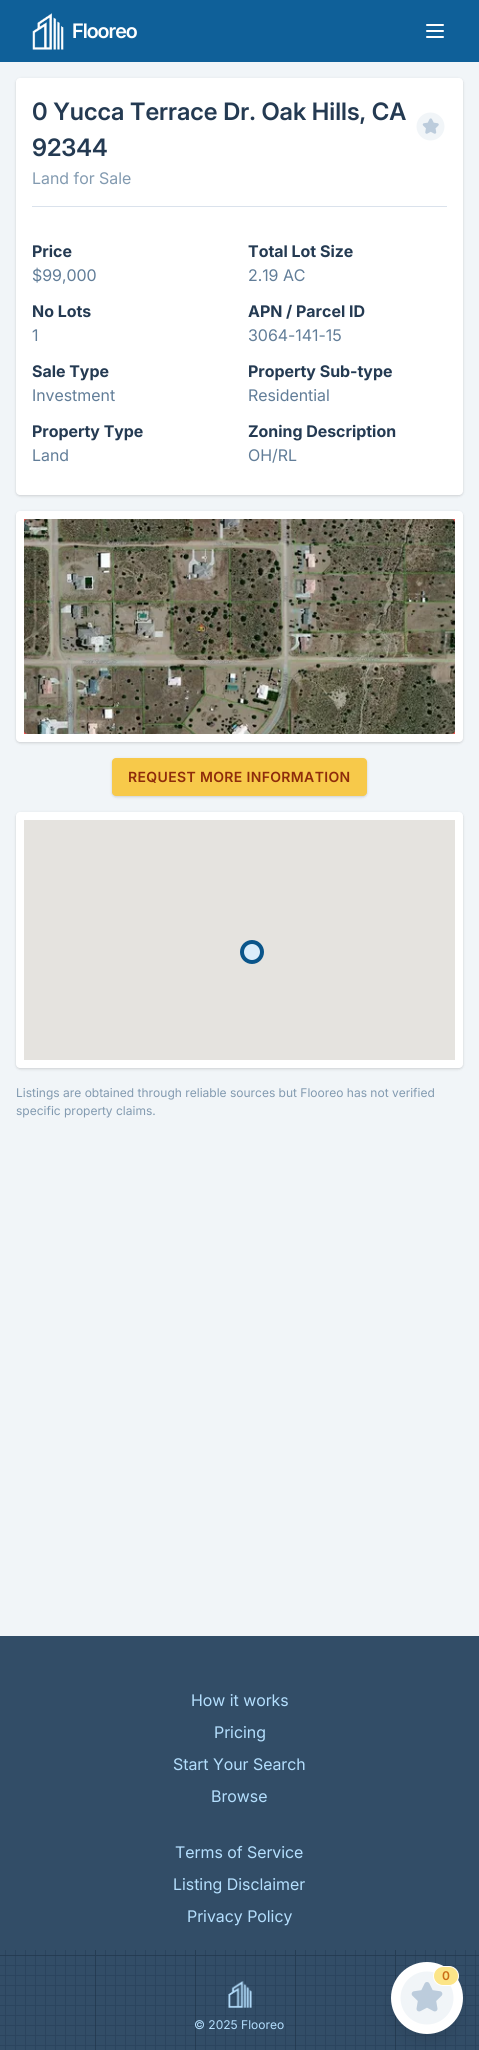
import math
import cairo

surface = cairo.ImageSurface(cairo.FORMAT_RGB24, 479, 2050)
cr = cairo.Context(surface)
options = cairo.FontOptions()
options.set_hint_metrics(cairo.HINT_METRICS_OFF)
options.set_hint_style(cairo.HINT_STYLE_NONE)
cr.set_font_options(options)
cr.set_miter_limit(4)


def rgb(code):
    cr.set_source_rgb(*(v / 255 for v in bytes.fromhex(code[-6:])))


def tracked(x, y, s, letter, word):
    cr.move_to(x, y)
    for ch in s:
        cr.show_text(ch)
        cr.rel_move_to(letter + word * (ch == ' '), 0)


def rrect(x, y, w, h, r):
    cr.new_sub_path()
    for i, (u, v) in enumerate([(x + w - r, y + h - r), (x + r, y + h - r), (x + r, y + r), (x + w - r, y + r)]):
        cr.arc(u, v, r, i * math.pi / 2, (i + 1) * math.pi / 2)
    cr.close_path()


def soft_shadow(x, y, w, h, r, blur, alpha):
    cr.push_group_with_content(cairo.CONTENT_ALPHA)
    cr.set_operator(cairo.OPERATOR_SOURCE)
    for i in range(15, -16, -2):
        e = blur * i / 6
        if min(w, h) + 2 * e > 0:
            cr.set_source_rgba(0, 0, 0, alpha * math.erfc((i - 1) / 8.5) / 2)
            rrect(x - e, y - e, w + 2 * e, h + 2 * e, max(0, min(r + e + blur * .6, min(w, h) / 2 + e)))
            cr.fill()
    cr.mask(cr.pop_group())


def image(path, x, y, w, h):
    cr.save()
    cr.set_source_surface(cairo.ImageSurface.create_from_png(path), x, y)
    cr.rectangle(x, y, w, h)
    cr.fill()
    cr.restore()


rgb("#f1f5f8")
cr.paint()
rgb("#0f6099")
cr.rectangle(0, 0, 479, 62)
cr.fill()
image("img/1.png", 32, 13, 32, 37)
image("img/2.png", 426, 24, 18, 14)
rgb("#000000")
soft_shadow(16, 79, 447, 417, 4, 1, 0.06)
soft_shadow(16, 79, 447, 417, 4, 1.5, 0.1)
rgb("#ffffff")
rrect(16, 78, 447, 417, 4)
cr.fill()
image("img/3.png", 416, 112, 29, 29)
rgb("#dae2ec")
cr.rectangle(32, 206, 415, 1)
cr.fill()
rgb("#000000")
soft_shadow(16, 512, 447, 231, 4, 1, 0.06)
soft_shadow(16, 512, 447, 231, 4, 1.5, 0.1)
rgb("#ffffff")
rrect(16, 511, 447, 231, 4)
cr.fill()
rgb("#f05252")
cr.rectangle(24, 519, 431, 215)
cr.fill()
image("img/4.png", 24, 519, 431, 215)
rgb("#000000")
soft_shadow(112, 759, 255, 38, 4, 1, 0.06)
soft_shadow(112, 759, 255, 38, 4, 1.5, 0.1)
rgb("#f7c94a")
rrect(112, 758, 255, 38, 4)
cr.fill()
rgb("#000000")
soft_shadow(16, 813, 447, 256, 4, 1, 0.06)
soft_shadow(16, 813, 447, 256, 4, 1.5, 0.1)
rgb("#ffffff")
rrect(16, 812, 447, 256, 4)
cr.fill()
rgb("#e5e3df")
cr.rectangle(24, 820, 431, 240)
cr.fill()
rgb("#daedfb")
cr.arc(252, 952, 10, 0, 2 * math.pi)
cr.fill_preserve()
rgb("#0a558a")
cr.set_line_width(4)
cr.stroke()
rgb("#324d67")
cr.rectangle(0, 1636, 479, 414)
cr.fill()
image("img/5.png", 0, 1950, 479, 100)
image("img/6.png", 228, 1981, 24, 27)
rgb("#000000")
soft_shadow(394, 1975, 66, 66, 33, 7.5, 0.1)
rgb("#ffffff")
cr.arc(427, 1998, 36, 0, 2 * math.pi)
cr.fill()
image("img/7.png", 400, 1971, 54, 54)
rgb("#fce588")
rrect(433.5, 1966.5, 25, 19, 9.5)
cr.fill_preserve()
rgb("#ffffff")
cr.set_line_width(1)
cr.stroke()
cr.select_font_face("Inter SemiBold")
cr.set_font_size(20)
tracked(72, 38, "Flooreo", -1, 0)
cr.select_font_face("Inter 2 SemiBold")
cr.set_font_size(24)
rgb("#243a52")
cr.move_to(32, 120)
cr.show_text("0 Yucca Terrace Dr. Oak Hills, CA")
cr.move_to(32, 156)
cr.show_text("92344")
cr.select_font_face("Inter")
cr.set_font_size(16)
rgb("#829ab0")
cr.move_to(32, 184)
cr.show_text("Land for Sale")
cr.select_font_face("Inter", cairo.FONT_SLANT_NORMAL, cairo.FONT_WEIGHT_BOLD)
rgb("#243a52")
cr.move_to(32, 257)
cr.show_text("Price")
cr.select_font_face("Inter")
rgb("#617d98")
cr.move_to(32, 281)
cr.show_text("$99,000")
cr.select_font_face("Inter", cairo.FONT_SLANT_NORMAL, cairo.FONT_WEIGHT_BOLD)
rgb("#243a52")
cr.move_to(248, 257)
cr.show_text("Total Lot Size")
cr.select_font_face("Inter")
rgb("#617d98")
cr.move_to(248, 281)
cr.show_text("2.19 AC")
cr.select_font_face("Inter", cairo.FONT_SLANT_NORMAL, cairo.FONT_WEIGHT_BOLD)
rgb("#243a52")
cr.move_to(32, 317)
cr.show_text("No Lots")
cr.select_font_face("Inter")
rgb("#617d98")
cr.move_to(32, 341)
cr.show_text("1")
cr.select_font_face("Inter", cairo.FONT_SLANT_NORMAL, cairo.FONT_WEIGHT_BOLD)
rgb("#243a52")
cr.move_to(248, 317)
cr.show_text("APN / Parcel ID")
cr.select_font_face("Inter")
rgb("#617d98")
cr.move_to(248, 341)
cr.show_text("3064-141-15")
cr.select_font_face("Inter", cairo.FONT_SLANT_NORMAL, cairo.FONT_WEIGHT_BOLD)
rgb("#243a52")
cr.move_to(32, 377)
cr.show_text("Sale Type")
cr.select_font_face("Inter")
rgb("#617d98")
cr.move_to(32, 401)
cr.show_text("Investment")
cr.select_font_face("Inter", cairo.FONT_SLANT_NORMAL, cairo.FONT_WEIGHT_BOLD)
rgb("#243a52")
cr.move_to(248, 377)
cr.show_text("Property Sub-type")
cr.select_font_face("Inter")
rgb("#617d98")
cr.move_to(248, 401)
cr.show_text("Residential")
cr.select_font_face("Inter", cairo.FONT_SLANT_NORMAL, cairo.FONT_WEIGHT_BOLD)
rgb("#243a52")
cr.move_to(32, 437)
cr.show_text("Property Type")
cr.select_font_face("Inter")
rgb("#617d98")
cr.move_to(32, 461)
cr.show_text("Land")
cr.select_font_face("Inter", cairo.FONT_SLANT_NORMAL, cairo.FONT_WEIGHT_BOLD)
rgb("#243a52")
cr.move_to(248, 437)
cr.show_text("Zoning Description")
cr.select_font_face("Inter")
rgb("#617d98")
cr.move_to(248, 461)
cr.show_text("OH/RL")
cr.select_font_face("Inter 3 SemiBold")
cr.set_font_size(14)
rgb("#8e2c0b")
tracked(128, 782, "REQUEST MORE INFORMATION", 0.35, 0)
cr.select_font_face("Inter 2")
cr.set_font_size(12)
rgb("#829ab0")
cr.move_to(16, 1097)
cr.show_text("Listings are obtained through reliable sources but Flooreo has not verified")
cr.move_to(16, 1115)
cr.show_text("specific property claims.")
cr.select_font_face("Inter")
cr.set_font_size(16)
rgb("#b4dffe")
for x, y, s in [
    (191, 1706, "How it works"),
    (214, 1738, "Pricing"),
    (173, 1770, "Start Your Search"),
    (211, 1802, "Browse"),
    (175, 1858, "Terms of Service"),
    (173, 1890, "Listing Disclaimer"),
    (187, 1922, "Privacy Policy"),
]:
    cr.move_to(x, y)
    cr.show_text(s)
cr.select_font_face("Inter 2")
cr.set_font_size(12)
cr.move_to(194, 2029)
cr.show_text("© 2025 Flooreo")
cr.select_font_face("Inter 3 SemiBold")
rgb("#ca6d16")
cr.move_to(442, 1980)
cr.show_text("0")
surface.write_to_png("page.png")
